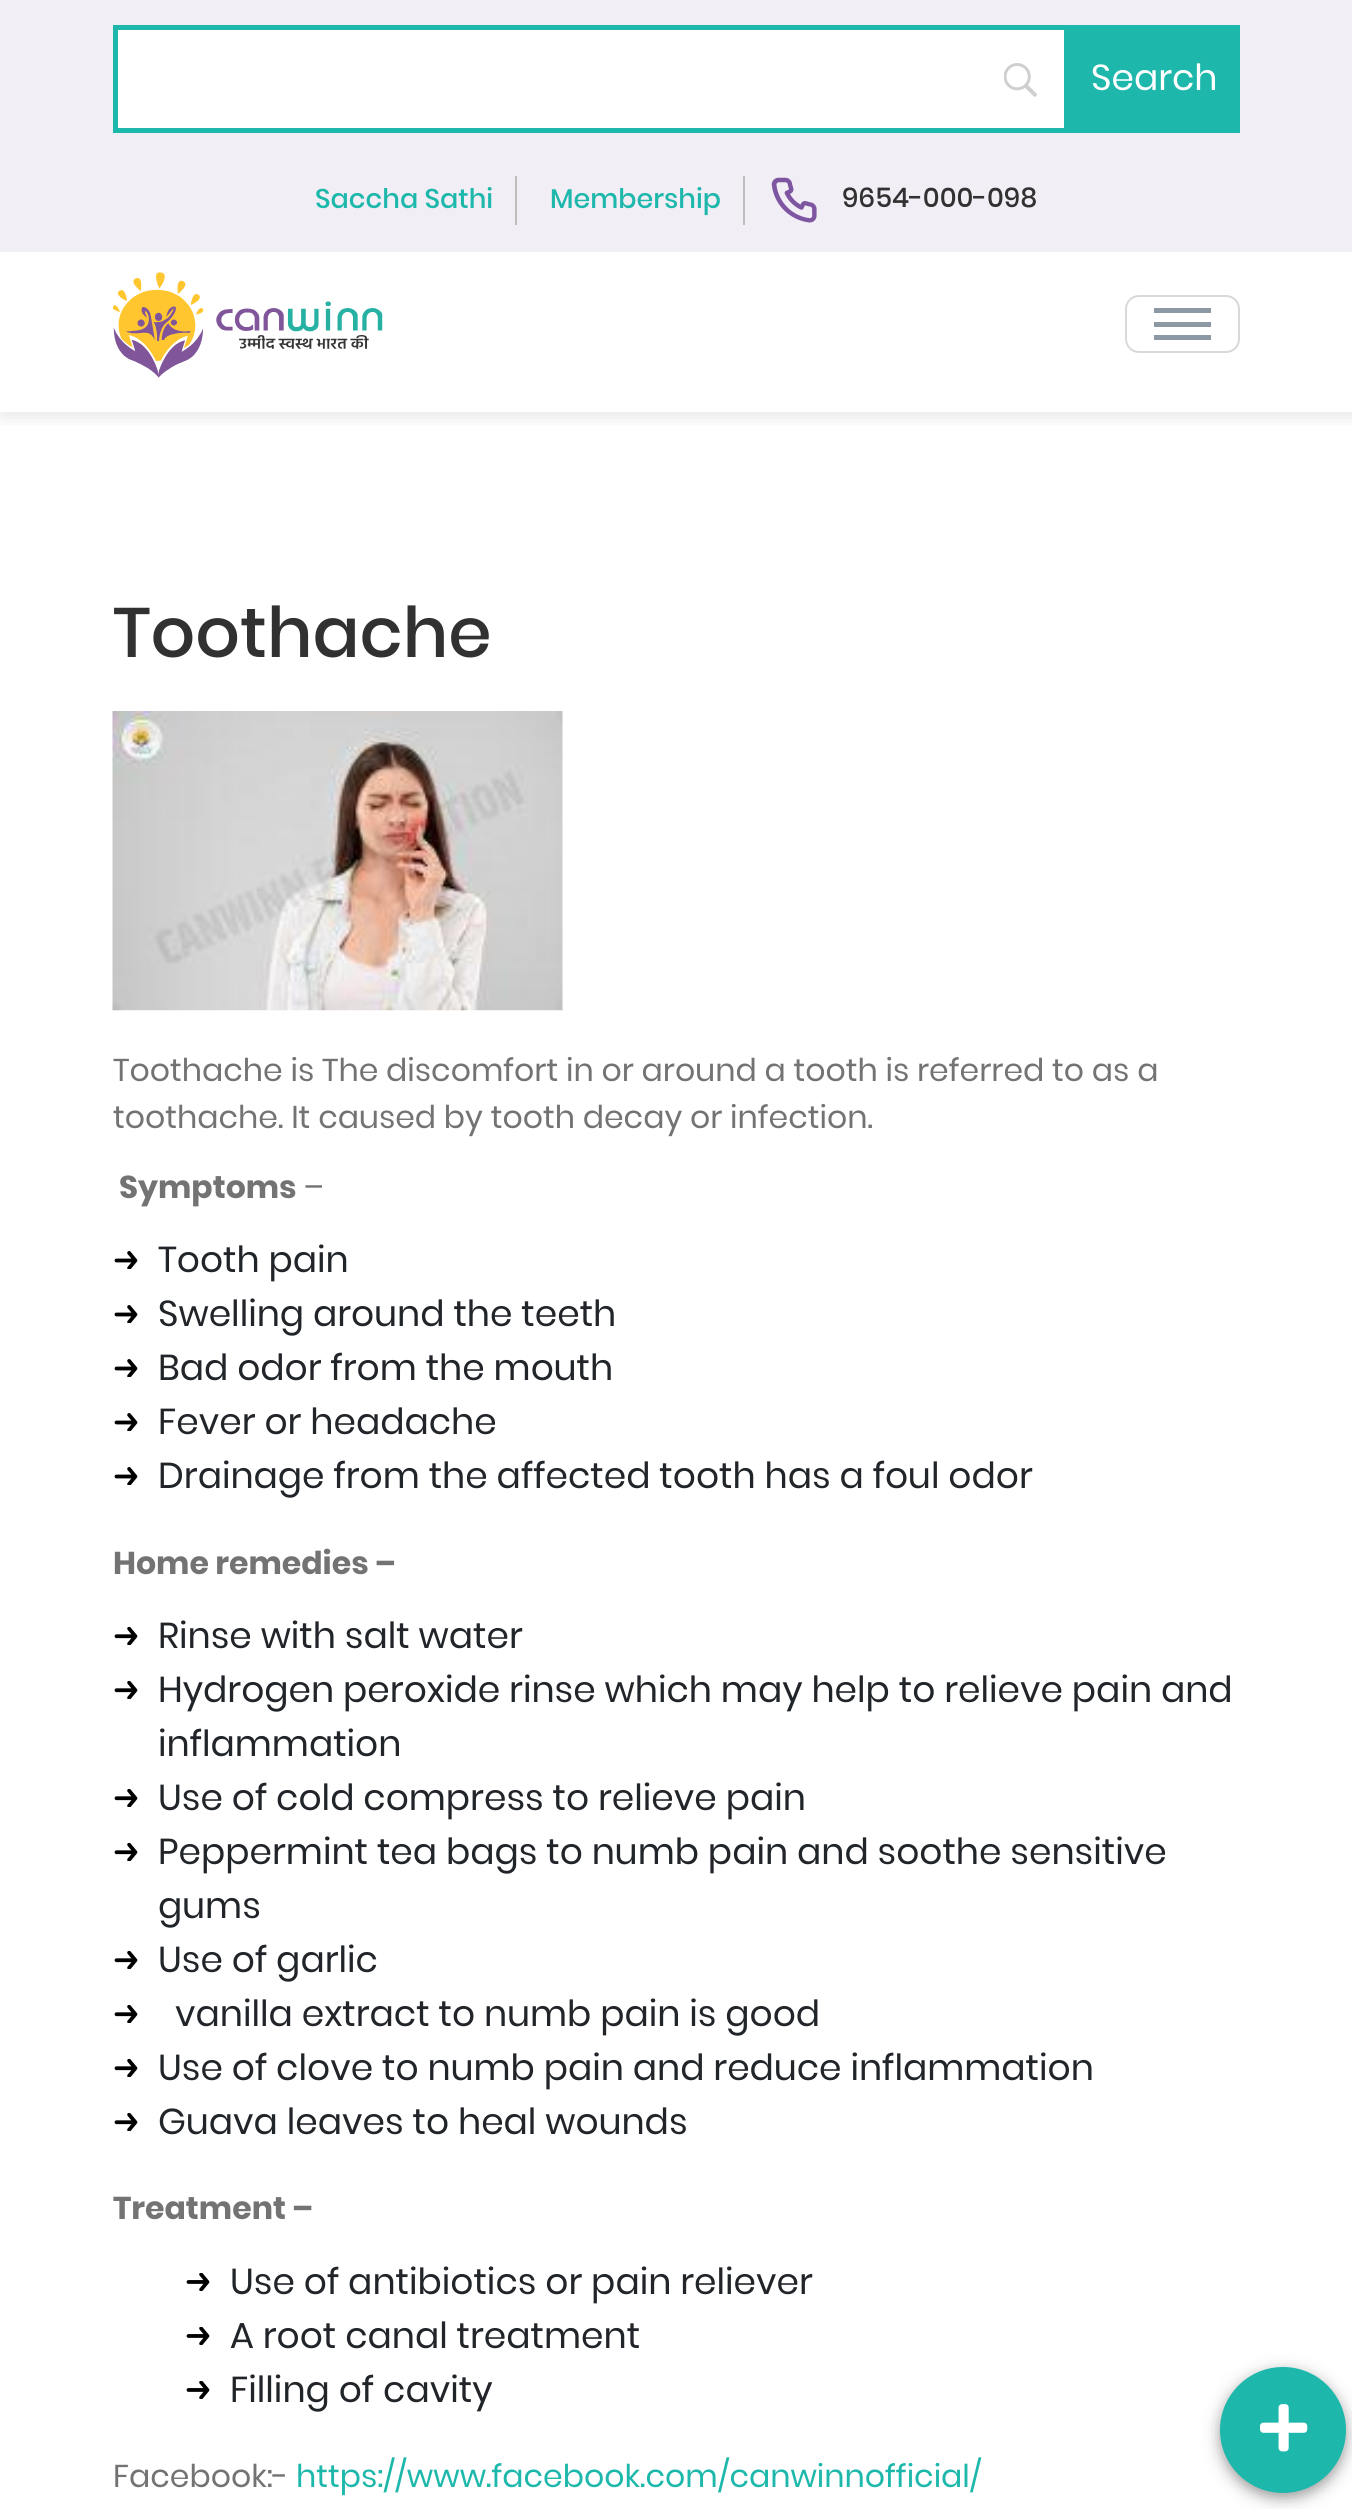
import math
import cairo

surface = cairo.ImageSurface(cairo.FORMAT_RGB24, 1352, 2509)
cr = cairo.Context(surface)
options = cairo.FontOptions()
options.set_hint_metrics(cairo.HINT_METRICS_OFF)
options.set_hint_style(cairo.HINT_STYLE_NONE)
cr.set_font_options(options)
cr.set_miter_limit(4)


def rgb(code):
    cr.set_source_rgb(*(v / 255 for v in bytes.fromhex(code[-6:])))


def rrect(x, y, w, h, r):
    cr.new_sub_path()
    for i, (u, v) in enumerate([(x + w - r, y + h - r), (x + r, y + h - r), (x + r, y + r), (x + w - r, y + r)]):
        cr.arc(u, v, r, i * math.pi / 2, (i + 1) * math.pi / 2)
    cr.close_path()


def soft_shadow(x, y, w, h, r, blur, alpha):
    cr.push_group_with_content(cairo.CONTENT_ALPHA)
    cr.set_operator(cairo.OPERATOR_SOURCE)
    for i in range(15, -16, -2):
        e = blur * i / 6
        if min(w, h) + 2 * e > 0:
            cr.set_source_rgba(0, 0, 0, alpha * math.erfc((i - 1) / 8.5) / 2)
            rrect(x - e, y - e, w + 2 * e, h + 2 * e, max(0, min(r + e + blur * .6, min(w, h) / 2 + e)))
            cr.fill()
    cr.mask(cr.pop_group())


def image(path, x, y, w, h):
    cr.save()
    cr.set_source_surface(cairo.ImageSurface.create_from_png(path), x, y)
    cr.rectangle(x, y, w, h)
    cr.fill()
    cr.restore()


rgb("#ffffff")
cr.paint()
cr.save()
cr.rectangle(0, 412, 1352, 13)
cr.clip()
rgb("#000000")
soft_shadow(2, 2, 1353, 412, 0, 11, 0.12)
cr.restore()
rgb("#f2eef6")
cr.rectangle(0, 0, 1352, 252)
cr.fill()
rgb("#ffffff")
cr.rectangle(118, 30, 946, 98)
cr.fill()
image("img/1.png", 1004, 63, 33, 34)
cr.rectangle(115.5, 27.5, 951, 103)
rgb("#1db8ab")
cr.set_line_width(5)
cr.stroke()
for x, y, w, h, color in [
    (1069, 25, 171, 108, "#1db8ab"),
    (515, 176, 2, 49, "#bebebe"),
    (743, 176, 2, 49, "#bebebe"),
]:
    rgb(color)
    cr.rectangle(x, y, w, h)
    cr.fill()
image("img/2.png", 771, 177, 46, 46)
image("img/3.png", 113, 272, 270, 106)
rrect(1126, 296, 113, 56, 13)
rgb("#d9d9d9")
cr.set_line_width(2)
cr.stroke()
for x, y, w, h, color in [
    (1154, 308, 57, 5, "#8c98a4"),
    (1154, 322, 57, 5, "#8c98a4"),
    (1154, 335, 57, 5, "#8c98a4"),
]:
    rgb(color)
    cr.rectangle(x, y, w, h)
    cr.fill()
image("img/4.png", 112, 711, 451, 300)
image("img/5.png", 114, 1251, 24, 18)
image("img/5.png", 114, 1305, 24, 18)
image("img/5.png", 114, 1359, 24, 18)
image("img/5.png", 114, 1413, 24, 18)
image("img/5.png", 114, 1467, 24, 18)
image("img/6.png", 114, 1627, 24, 18)
image("img/6.png", 114, 1681, 24, 18)
image("img/6.png", 114, 1789, 24, 18)
image("img/6.png", 114, 1843, 24, 18)
image("img/6.png", 114, 1951, 24, 18)
image("img/6.png", 114, 2005, 24, 18)
image("img/6.png", 114, 2059, 24, 18)
image("img/6.png", 114, 2113, 24, 18)
image("img/7.png", 186, 2273, 24, 18)
image("img/7.png", 186, 2327, 24, 18)
image("img/7.png", 186, 2381, 24, 18)
rgb("#000000")
soft_shadow(1220, 2372, 126, 126, 63, 5.5, 0.26)
soft_shadow(1220, 2372, 126, 126, 63, 11, 0.16)
rgb("#1db8ab")
cr.arc(1283, 2430, 63, 0, 2 * math.pi)
cr.fill()
image("img/8.png", 1260, 2404, 48, 48)
cr.select_font_face("Poppins")
cr.set_font_size(36)
rgb("#ffffff")
cr.move_to(1091, 90)
cr.show_text("Search")
cr.select_font_face("Poppins Medium")
cr.set_font_size(27)
rgb("#1db8ab")
cr.move_to(315, 208)
cr.show_text("Saccha Sathi")
cr.move_to(550, 208)
cr.show_text("Membership")
rgb("#313131")
cr.move_to(842, 207)
cr.show_text("9654-000-098")
cr.set_font_size(69.75)
cr.move_to(113, 657)
cr.show_text("Toothache")
cr.select_font_face("Poppins")
cr.set_font_size(31.5)
rgb("#737373")
cr.move_to(113, 1081)
cr.show_text("Toothache is The discomfort in or around a tooth is referred to as a")
cr.move_to(113, 1128)
cr.show_text("toothache. It caused by tooth decay or infection.")
cr.select_font_face("Poppins", cairo.FONT_SLANT_NORMAL, cairo.FONT_WEIGHT_BOLD)
cr.move_to(119, 1198)
cr.show_text("Symptoms")
cr.select_font_face("Poppins")
cr.move_to(304, 1198)
cr.show_text("–")
cr.set_font_size(36)
rgb("#212529")
for x, y, s in [
    (158, 1272, "Tooth pain"),
    (158, 1326, "Swelling around the teeth"),
    (158, 1380, "Bad odor from the mouth"),
    (158, 1434, "Fever or headache"),
    (158, 1488, "Drainage from the affected tooth has a foul odor"),
]:
    cr.move_to(x, y)
    cr.show_text(s)
cr.select_font_face("Poppins", cairo.FONT_SLANT_NORMAL, cairo.FONT_WEIGHT_BOLD)
cr.set_font_size(31.5)
rgb("#737373")
cr.move_to(113, 1574)
cr.show_text("Home remedies –")
cr.select_font_face("Poppins")
cr.set_font_size(36)
rgb("#212529")
for x, y, s in [
    (158, 1648, "Rinse with salt water"),
    (158, 1702, "Hydrogen peroxide rinse which may help to relieve pain and"),
    (158, 1756, "inflammation"),
    (158, 1810, "Use of cold compress to relieve pain"),
    (158, 1864, "Peppermint tea bags to numb pain and soothe sensitive"),
    (158, 1918, "gums"),
    (158, 1972, "Use of garlic"),
    (175, 2026, "vanilla extract to numb pain is good"),
    (158, 2080, "Use of clove to numb pain and reduce inflammation"),
    (158, 2134, "Guava leaves to heal wounds"),
]:
    cr.move_to(x, y)
    cr.show_text(s)
cr.select_font_face("Poppins", cairo.FONT_SLANT_NORMAL, cairo.FONT_WEIGHT_BOLD)
cr.set_font_size(31.5)
rgb("#737373")
cr.move_to(113, 2219)
cr.show_text("Treatment –")
cr.select_font_face("Poppins")
cr.set_font_size(36)
rgb("#212529")
for x, y, s in [
    (230, 2294, "Use of antibiotics or pain reliever"),
    (230, 2348, "A root canal treatment"),
    (230, 2402, "Filling of cavity"),
]:
    cr.move_to(x, y)
    cr.show_text(s)
cr.set_font_size(31.5)
rgb("#737373")
cr.move_to(113, 2487)
cr.show_text("Facebook:-")
rgb("#1db8ab")
cr.move_to(296, 2487)
cr.show_text("https://www.facebook.com/canwinnofficial/")
surface.write_to_png("page.png")
